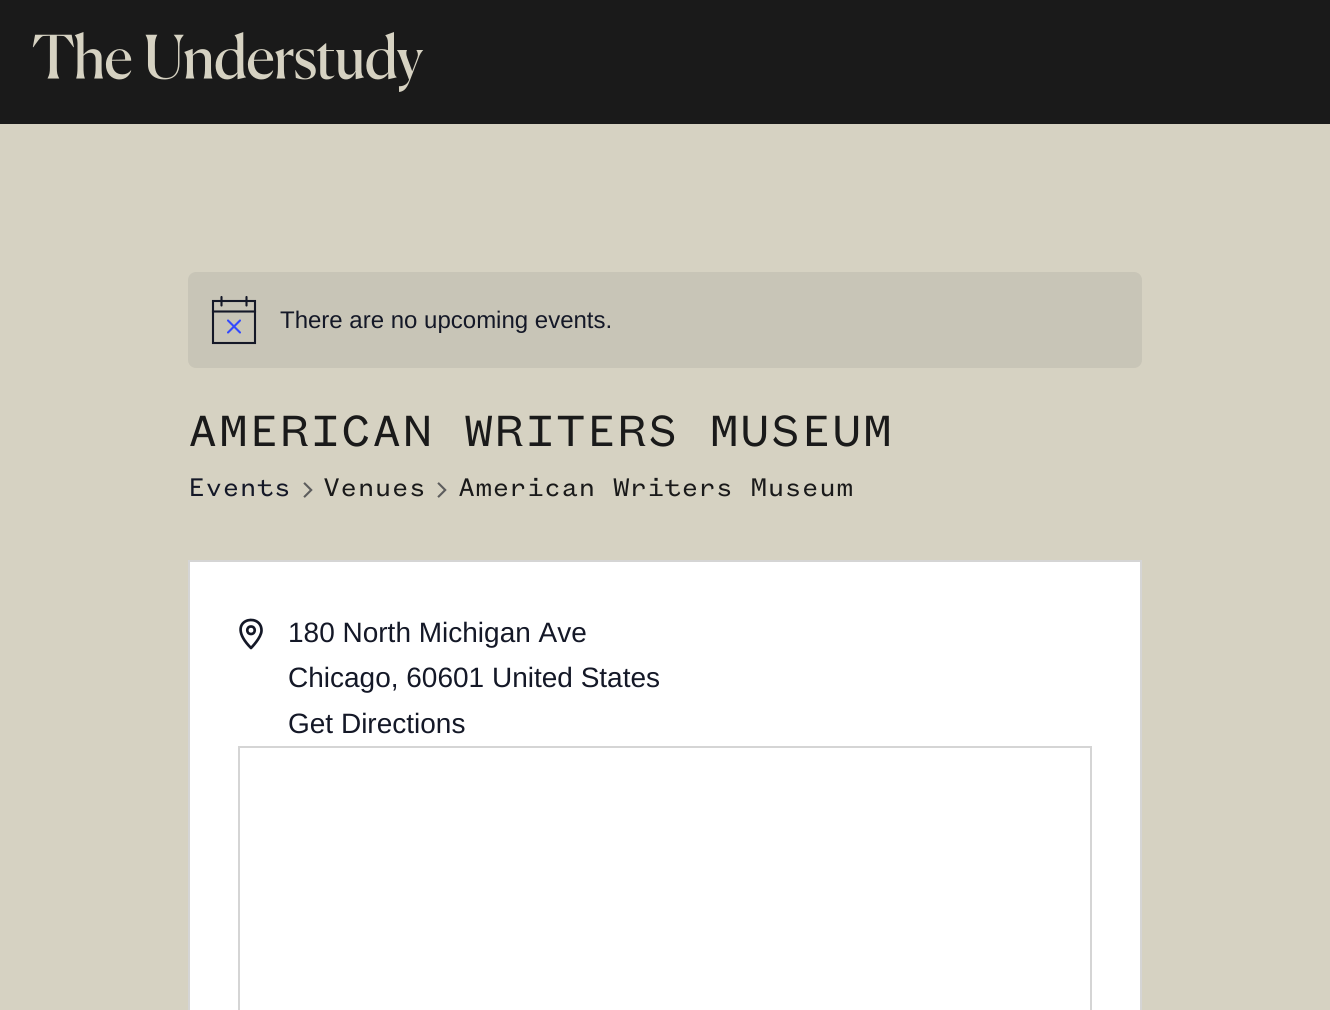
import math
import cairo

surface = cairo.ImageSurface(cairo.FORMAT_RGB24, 1330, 1010)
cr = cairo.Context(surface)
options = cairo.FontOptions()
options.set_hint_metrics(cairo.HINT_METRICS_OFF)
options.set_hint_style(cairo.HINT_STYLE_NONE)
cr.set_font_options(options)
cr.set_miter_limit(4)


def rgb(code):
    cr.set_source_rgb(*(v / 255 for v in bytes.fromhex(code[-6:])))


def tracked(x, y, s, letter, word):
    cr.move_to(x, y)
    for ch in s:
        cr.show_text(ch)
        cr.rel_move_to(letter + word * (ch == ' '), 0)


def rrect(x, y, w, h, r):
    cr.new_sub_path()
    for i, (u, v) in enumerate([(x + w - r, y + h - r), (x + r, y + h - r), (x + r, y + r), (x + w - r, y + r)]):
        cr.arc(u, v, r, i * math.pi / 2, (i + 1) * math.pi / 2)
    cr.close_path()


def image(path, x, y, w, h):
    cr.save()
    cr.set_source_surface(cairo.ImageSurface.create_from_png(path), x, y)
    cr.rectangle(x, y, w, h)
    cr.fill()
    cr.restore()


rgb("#d6d2c2")
cr.paint()
rgb("#1a1a1a")
cr.rectangle(0, 0, 1330, 124)
cr.fill()
image("img/1.png", 32, 32, 392, 60)
rgb("#c8c5b7")
rrect(188, 272, 954, 96, 8)
cr.fill()
cr.new_path()
cr.move_to(213, 301)
cr.line_to(255, 301)
cr.line_to(255, 343)
cr.line_to(213, 343)
cr.close_path()
rgb("#141827")
cr.set_line_width(2.1)
cr.stroke()
cr.new_path()
cr.move_to(228, 320.5)
cr.line_to(240, 332.5)
cr.move_to(240, 320.5)
cr.line_to(228, 332.5)
rgb("#334aff")
cr.set_line_cap(cairo.LINE_CAP_ROUND)
cr.stroke()
cr.new_path()
cr.move_to(221.5, 297)
cr.line_to(221.5, 305.5)
cr.move_to(246.5, 297)
cr.line_to(246.5, 305.5)
rgb("#141827")
cr.stroke()
cr.new_path()
cr.move_to(213, 311.5)
cr.line_to(255, 311.5)
cr.set_line_cap(cairo.LINE_CAP_SQUARE)
cr.stroke()
image("img/2.png", 303, 482, 10, 16)
image("img/2.png", 437, 482, 10, 16)
rgb("#ffffff")
cr.rectangle(189, 561, 952, 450)
cr.fill_preserve()
rgb("#d5d5d5")
cr.set_line_width(2)
cr.set_line_cap(cairo.LINE_CAP_BUTT)
cr.stroke()
cr.new_path()
cr.move_to(261.5, 630.5)
cr.curve_to(261.5, 637.5, 251, 648, 251, 648)
cr.curve_to(222.5, 619.5, 261.5, 611, 261.5, 630.5)
cr.close_path()
cr.move_to(251, 634)
cr.curve_to(256, 634, 256, 626.5, 251, 626.5)
cr.curve_to(246, 626.5, 246, 634, 251, 634)
cr.close_path()
rgb("#141827")
cr.set_line_width(2.7)
cr.set_line_cap(cairo.LINE_CAP_ROUND)
cr.set_line_join(cairo.LINE_JOIN_ROUND)
cr.stroke()
cr.rectangle(239, 747, 852, 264)
rgb("#d5d5d5")
cr.set_line_width(2)
cr.set_line_cap(cairo.LINE_CAP_BUTT)
cr.set_line_join(cairo.LINE_JOIN_MITER)
cr.stroke()
cr.select_font_face("Liberation Sans")
cr.set_font_size(24)
rgb("#141827")
cr.move_to(280, 328)
cr.show_text("There are no upcoming events.")
cr.select_font_face("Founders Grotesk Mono")
cr.set_font_size(48)
rgb("#1a1a1a")
tracked(188, 446, "AMERICAN WRITERS MUSEUM", 1.2, 0)
cr.set_font_size(28)
rgb("#141827")
cr.move_to(188, 496)
cr.show_text("Events")
rgb("#1a1a1a")
cr.move_to(323, 496)
cr.show_text("Venues")
cr.move_to(458, 496)
cr.show_text("American Writers Museum")
cr.select_font_face("Liberation Sans")
rgb("#141827")
for x, y, s in [
    (288, 642, "180 North Michigan Ave"),
    (288, 687, "Chicago, 60601 United States"),
    (288, 733, "Get Directions"),
]:
    cr.move_to(x, y)
    cr.show_text(s)
surface.write_to_png("page.png")
